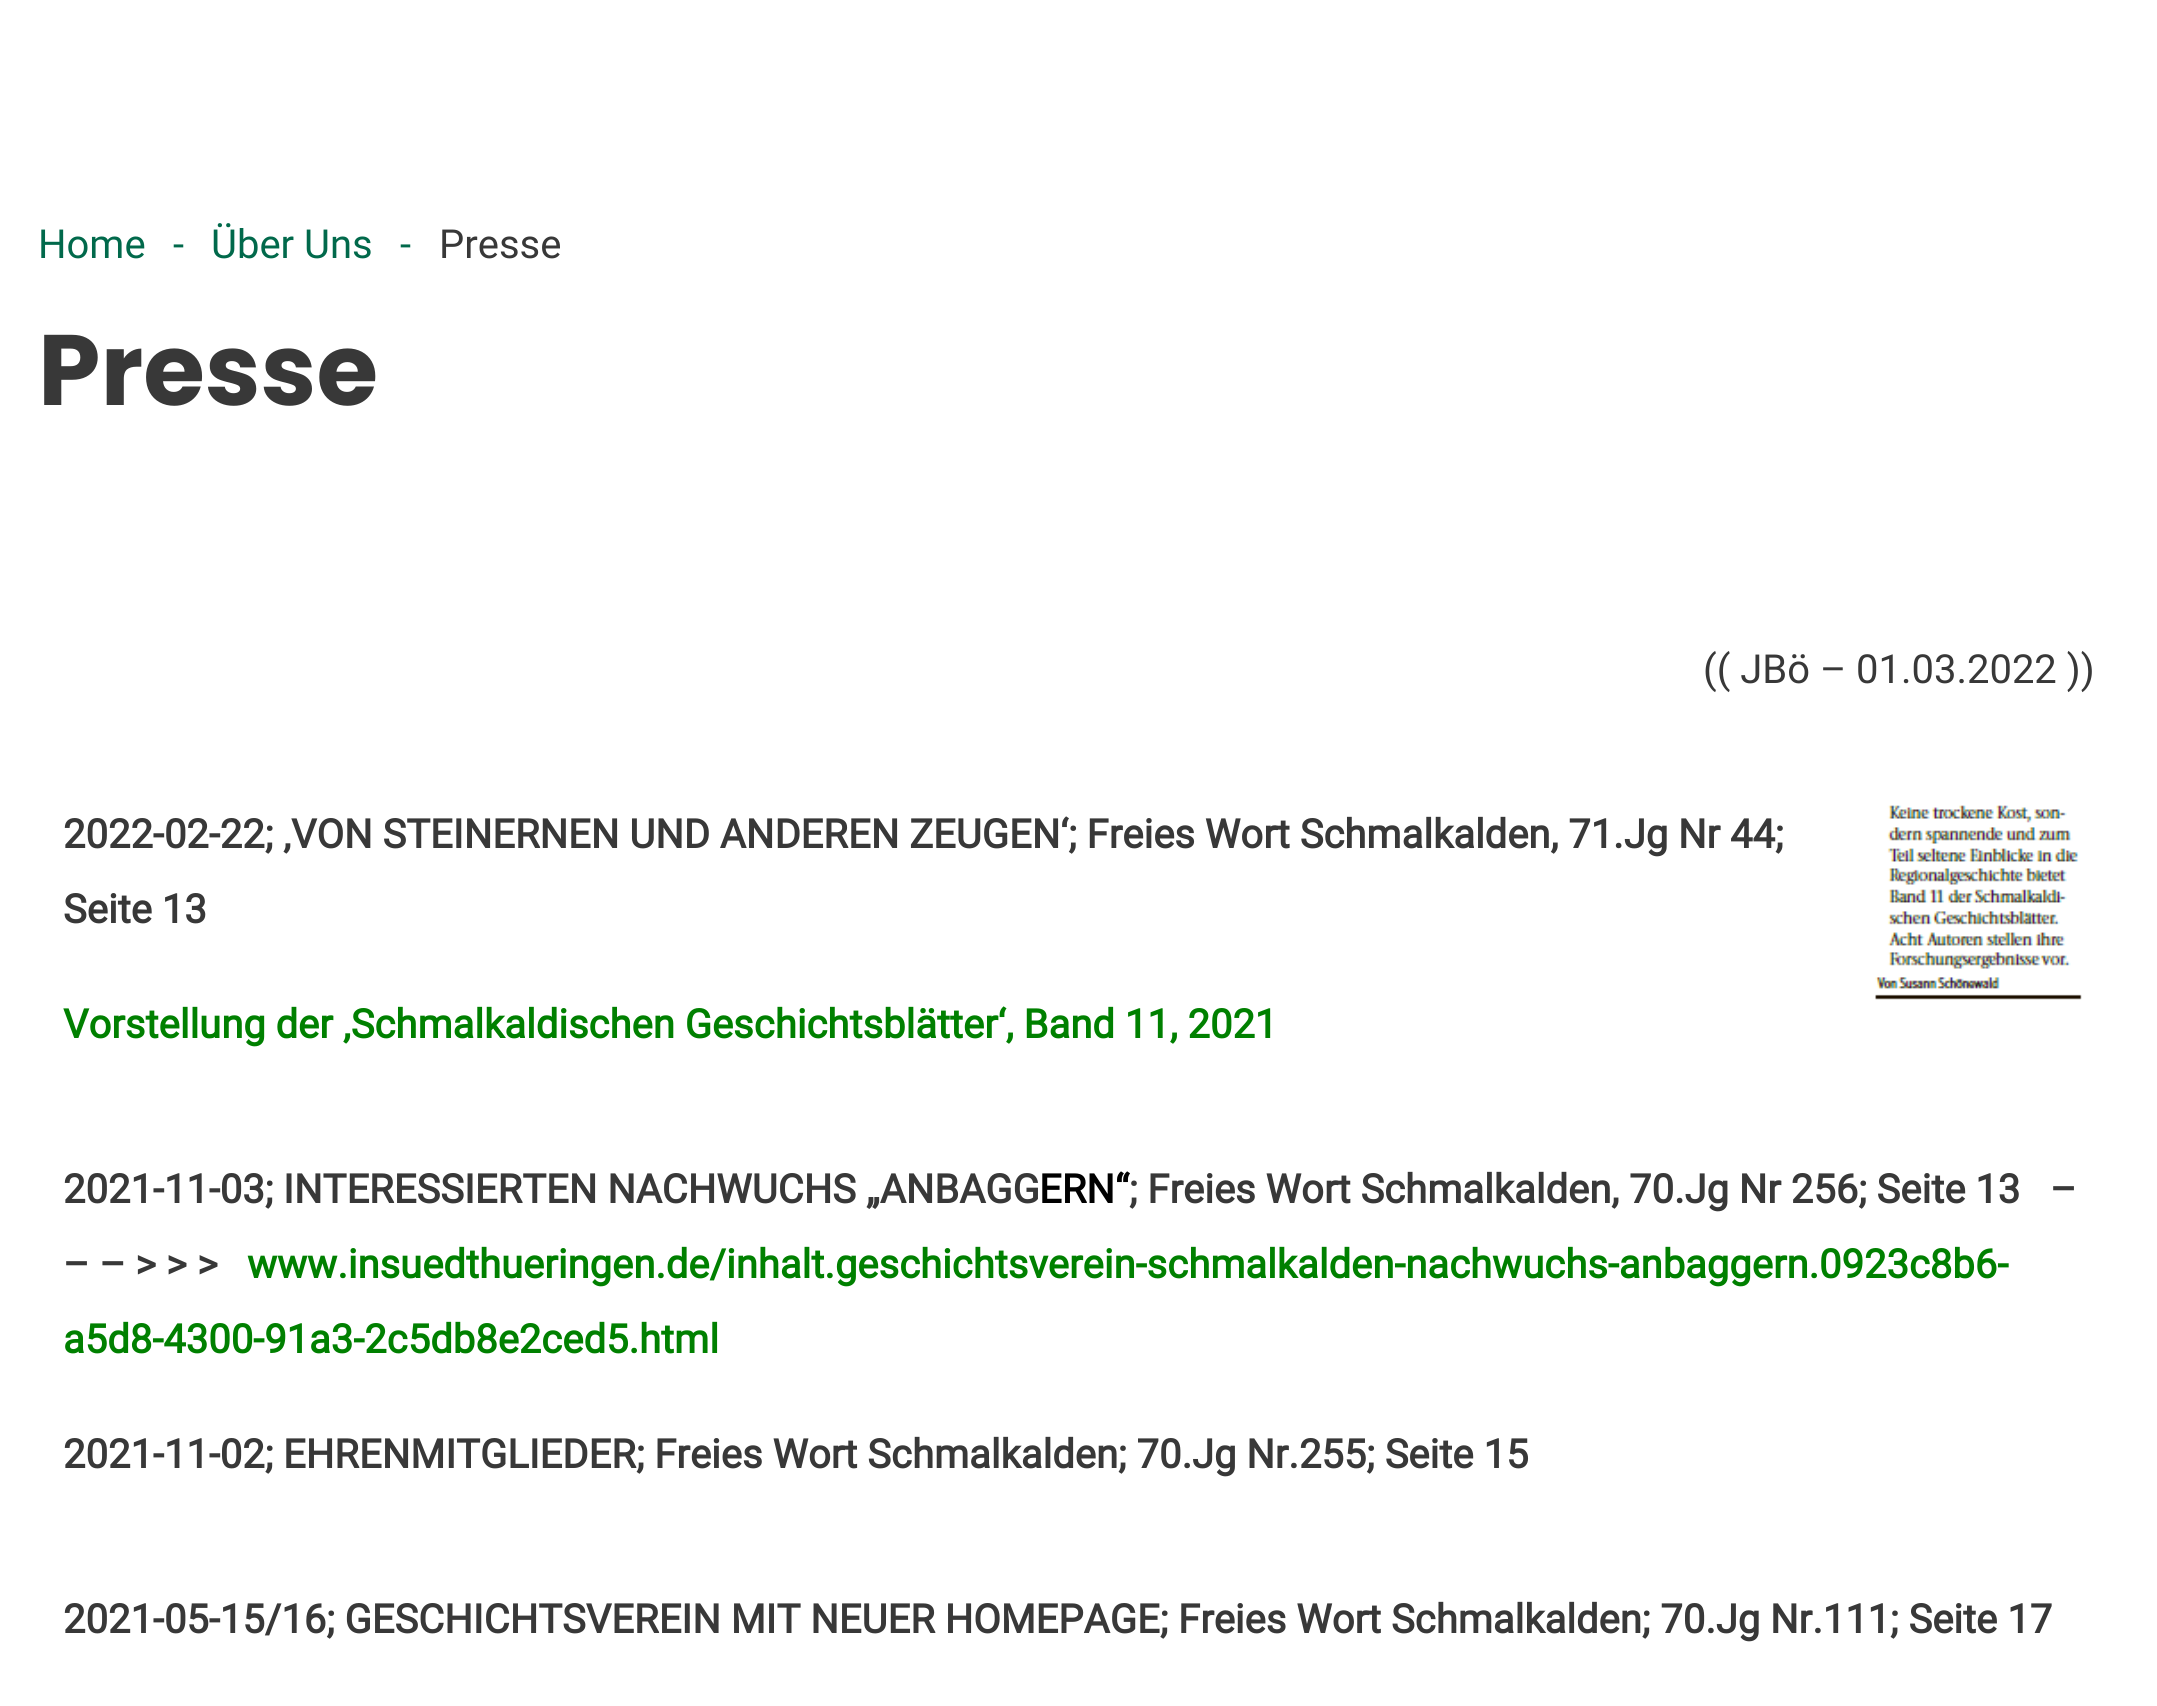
import math
import cairo

surface = cairo.ImageSurface(cairo.FORMAT_RGB24, 2157, 1706)
cr = cairo.Context(surface)
options = cairo.FontOptions()
options.set_hint_metrics(cairo.HINT_METRICS_OFF)
options.set_hint_style(cairo.HINT_STYLE_NONE)
cr.set_font_options(options)
cr.set_miter_limit(4)


def rgb(code):
    cr.set_source_rgb(*(v / 255 for v in bytes.fromhex(code[-6:])))


def image(path, x, y, w, h):
    cr.save()
    cr.set_source_surface(cairo.ImageSurface.create_from_png(path), x, y)
    cr.rectangle(x, y, w, h)
    cr.fill()
    cr.restore()


rgb("#ffffff")
cr.paint()
image("img/1.png", 1875, 805, 207, 195)
cr.select_font_face("Roboto")
cr.set_font_size(40)
rgb("#01694b")
for x, y, s in [
    (38, 258, "Home"),
    (173, 258, "-"),
    (211, 258, "Über Uns"),
    (400, 258, "-"),
]:
    cr.move_to(x, y)
    cr.show_text(s)
rgb("#383838")
cr.move_to(439, 258)
cr.show_text("Presse")
cr.select_font_face("Poppins", cairo.FONT_SLANT_NORMAL, cairo.FONT_WEIGHT_BOLD)
cr.set_font_size(100)
cr.move_to(38, 405)
cr.show_text("Presse")
cr.select_font_face("Roboto")
cr.set_font_size(40)
cr.move_to(1703, 683)
cr.show_text("(( JBö – 01.03.2022 ))")
cr.select_font_face("Roboto", cairo.FONT_SLANT_NORMAL, cairo.FONT_WEIGHT_BOLD)
cr.move_to(63, 848)
cr.show_text("2022-02-22; ‚VON STEINERNEN UND ANDEREN ZEUGEN‘; Freies Wort Schmalkalden, 71.Jg Nr 44;")
cr.move_to(63, 923)
cr.show_text("Seite 13")
rgb("#008000")
cr.move_to(63, 1038)
cr.show_text("Vorstellung der ‚Schmalkaldischen Geschichtsblätter‘, Band 11, 2021")
rgb("#383838")
cr.move_to(63, 1203)
cr.show_text("2021-11-03; INTERESSIERTEN NACHWUCHS „ANBAGG")
rgb("#000000")
cr.move_to(1039, 1203)
cr.show_text("ERN“")
rgb("#383838")
cr.move_to(1129, 1203)
cr.show_text("; Freies Wort Schmalkalden, 70.Jg Nr 256; Seite 13   –")
cr.move_to(63, 1278)
cr.show_text("– – > > >")
rgb("#008000")
cr.move_to(247, 1278)
cr.show_text("www.insuedthueringen.de/inhalt.geschichtsverein-schmalkalden-nachwuchs-anbaggern.0923c8b6-")
cr.move_to(63, 1353)
cr.show_text("a5d8-4300-91a3-2c5db8e2ced5.html")
rgb("#383838")
cr.move_to(63, 1468)
cr.show_text("2021-11-02; EHRENMITGLIEDER; Freies Wort Schmalkalden; 70.Jg Nr.255; Seite 15")
cr.move_to(63, 1633)
cr.show_text("2021-05-15/16; GESCHICHTSVEREIN MIT NEUER HOMEPAGE; Freies Wort Schmalkalden; 70.Jg Nr.111; Seite 17")
surface.write_to_png("page.png")
